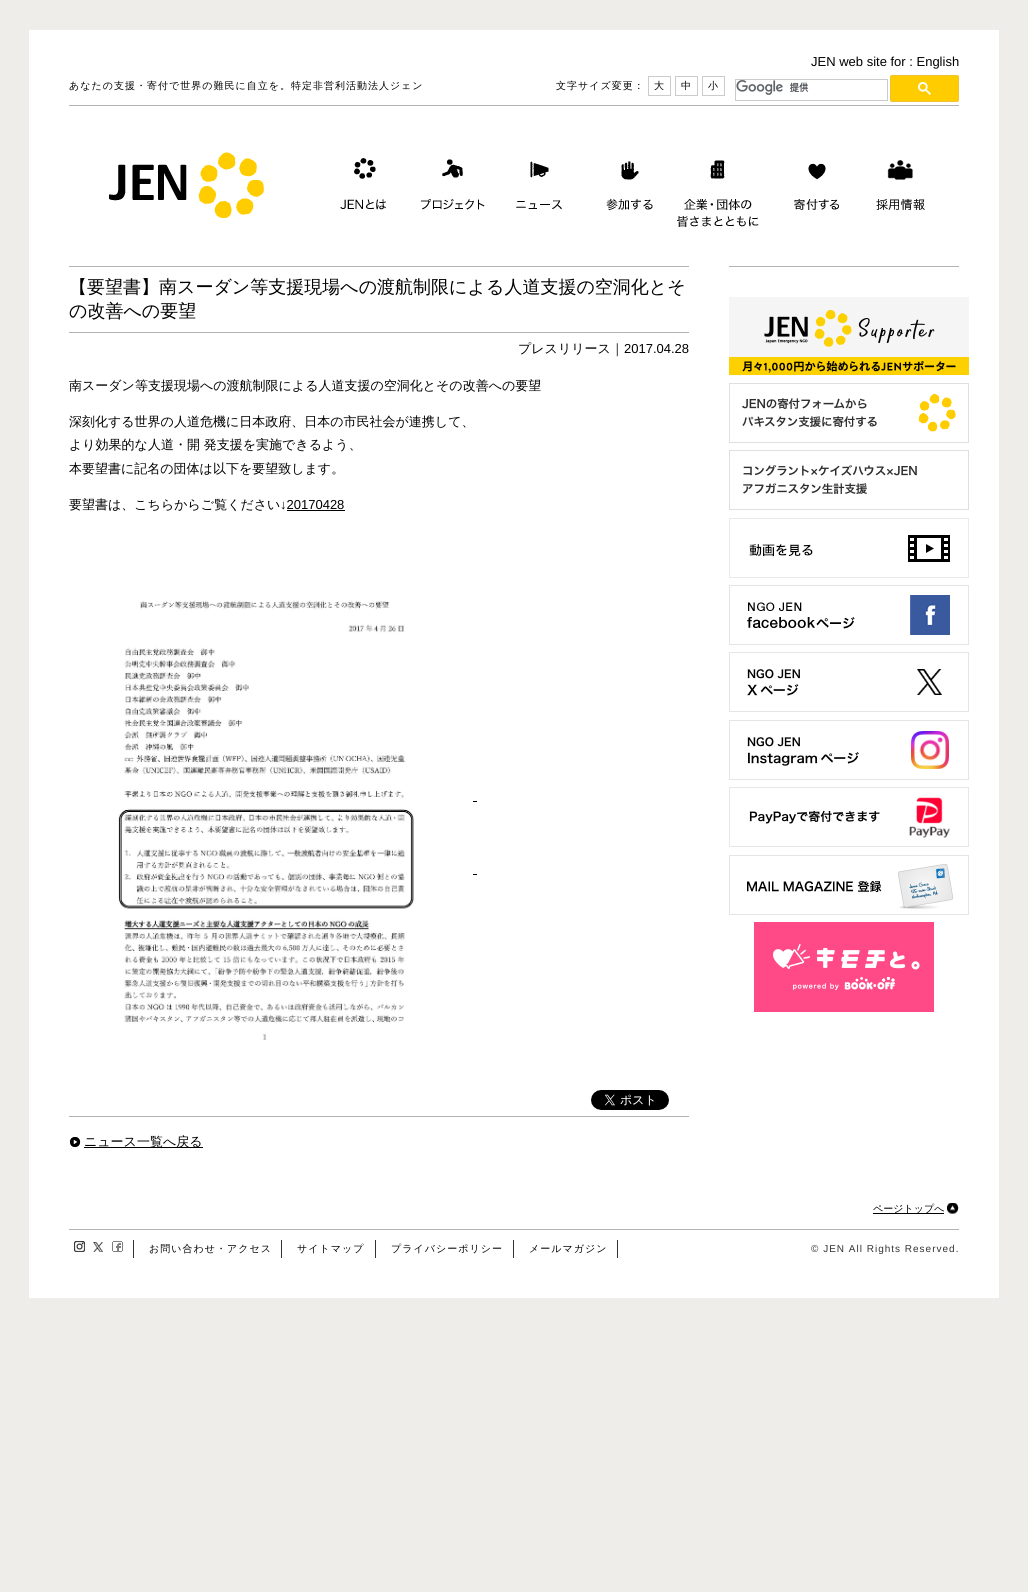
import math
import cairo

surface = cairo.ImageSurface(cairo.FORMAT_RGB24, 1028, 1592)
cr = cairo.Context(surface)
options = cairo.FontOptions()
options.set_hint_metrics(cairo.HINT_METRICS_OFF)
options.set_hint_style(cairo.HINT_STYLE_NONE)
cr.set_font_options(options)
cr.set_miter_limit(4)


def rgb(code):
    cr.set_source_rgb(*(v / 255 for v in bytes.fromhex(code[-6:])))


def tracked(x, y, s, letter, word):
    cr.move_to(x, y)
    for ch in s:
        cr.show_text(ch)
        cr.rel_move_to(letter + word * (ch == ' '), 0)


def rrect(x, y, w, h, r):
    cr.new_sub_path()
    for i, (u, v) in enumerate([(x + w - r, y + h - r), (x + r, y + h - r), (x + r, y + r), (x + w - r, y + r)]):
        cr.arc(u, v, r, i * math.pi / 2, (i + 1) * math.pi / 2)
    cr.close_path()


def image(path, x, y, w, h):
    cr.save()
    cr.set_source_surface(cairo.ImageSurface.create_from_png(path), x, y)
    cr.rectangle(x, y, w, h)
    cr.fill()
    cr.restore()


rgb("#eeede9")
cr.paint()
rgb("#ffffff")
cr.rectangle(29, 30, 970, 1268)
cr.fill()
rgb("#b2b2b2")
cr.rectangle(69, 105, 890, 1)
cr.fill()
cr.rectangle(648.5, 76.5, 22, 19)
rgb("#cccccc")
cr.set_line_width(1)
cr.stroke()
cr.rectangle(675.5, 76.5, 22, 19)
cr.stroke()
cr.rectangle(702.5, 76.5, 22, 19)
cr.stroke()
cr.rectangle(735.5, 79.5, 152, 21)
cr.stroke()
image("img/1.png", 736, 80, 73, 15)
rgb("#ffcc00")
rrect(890.5, 75.5, 68, 26, 1.5)
cr.fill_preserve()
rgb("#f1c232")
cr.stroke()
image("img/2.png", 918, 82, 13, 13)
image("img/3.png", 109, 152, 155, 66)
image("img/4.png", 340, 158, 46, 52)
image("img/5.png", 421, 159, 64, 51)
image("img/6.png", 516, 161, 46, 49)
image("img/7.png", 606, 161, 47, 49)
image("img/8.png", 677, 160, 82, 67)
image("img/9.png", 794, 163, 45, 47)
image("img/10.png", 876, 159, 49, 51)
for x, y, w, h, color in [
    (69, 266, 620, 1, "#b2b2b2"),
    (69, 332, 620, 1, "#b2b2b2"),
    (287, 510, 58, 1, "#000000"),
]:
    rgb(color)
    cr.rectangle(x, y, w, h)
    cr.fill()
image("img/11.png", 118, 600, 296, 440)
cr.rectangle(473, 801, 4, 1)
cr.fill()
cr.rectangle(473, 874, 4, 1)
cr.fill()
image("img/12.png", 591, 1090, 78, 20)
rgb("#b2b2b2")
cr.rectangle(69, 1116, 620, 1)
cr.fill()
image("img/13.png", 69, 1137, 12, 10)
rgb("#000000")
cr.rectangle(84, 1147, 119, 1)
cr.fill()
rgb("#b2b2b2")
cr.rectangle(729, 266, 230, 1)
cr.fill()
image("img/14.png", 729, 297, 240, 78)
image("img/15.png", 729, 383, 240, 60)
image("img/16.png", 729, 450, 240, 60)
image("img/17.png", 729, 518, 240, 60)
image("img/18.png", 729, 585, 240, 60)
image("img/19.png", 729, 652, 240, 60)
image("img/20.png", 729, 720, 240, 60)
image("img/21.png", 729, 787, 240, 60)
image("img/22.png", 729, 855, 240, 60)
image("img/23.png", 754, 922, 180, 90)
rgb("#000000")
cr.rectangle(873, 1213, 71, 1)
cr.fill()
image("img/24.png", 947, 1203, 12, 11)
rgb("#b2b2b2")
cr.rectangle(69, 1229, 890, 1)
cr.fill()
rgb("#333333")
cr.rectangle(133, 1240, 1, 18)
cr.fill()
image("img/25.png", 74, 1241, 11, 11)
image("img/26.png", 93, 1242, 10, 10)
image("img/27.png", 112, 1241, 11, 11)
for x, y, w, h, color in [
    (281, 1240, 1, 18, "#333333"),
    (375, 1240, 1, 18, "#333333"),
    (513, 1240, 1, 18, "#333333"),
    (617, 1240, 1, 18, "#333333"),
]:
    rgb(color)
    cr.rectangle(x, y, w, h)
    cr.fill()
cr.select_font_face("Liberation Sans")
cr.set_font_size(13)
rgb("#000000")
cr.move_to(811, 66)
cr.show_text("JEN web site for : English")
cr.select_font_face("WenQuanYi Zen Hei Medium")
cr.set_font_size(10)
for x, y, s in [
    (69, 89, "あなたの支援・寄付で世界の難民に自立を。特定非営利活動法人ジェン"),
    (556, 89, "文字サイズ変更："),
    (654, 89, "大"),
    (681, 89, "中"),
    (708, 89, "小"),
]:
    tracked(x, y, s, 1, 0)
cr.set_font_size(18)
cr.move_to(69, 293)
cr.show_text("【要望書】南スーダン等支援現場への渡航制限による人道支援の空洞化とそ")
cr.move_to(69, 317)
cr.show_text("の改善への要望")
cr.set_font_size(13)
cr.move_to(518, 353)
cr.show_text("プレスリリース｜")
cr.select_font_face("Liberation Sans")
cr.move_to(624, 353)
cr.show_text("2017.04.28")
cr.select_font_face("WenQuanYi Zen Hei Medium")
for x, y, s in [
    (69, 390, "南スーダン等支援現場への渡航制限による人道支援の空洞化とその改善への要望"),
    (69, 426, "深刻化する世界の人道危機に日本政府、日本の市民社会が連携して、"),
    (69, 449, "より効果的な人道・開 発支援を実施できるよう、"),
    (69, 473, "本要望書に記名の団体は以下を要望致します。"),
    (69, 509, "要望書は、こちらからご覧ください"),
]:
    cr.move_to(x, y)
    cr.show_text(s)
cr.select_font_face("Liberation Sans")
cr.move_to(280, 509)
cr.show_text("↓20170428")
cr.select_font_face("WenQuanYi Zen Hei Medium")
cr.move_to(84, 1146)
cr.show_text("ニュース一覧へ戻る")
cr.set_font_size(10)
cr.move_to(873, 1212)
cr.show_text("ページトップへ")
for x, y, s in [
    (149, 1252, "お問い合わせ・アクセス"),
    (297, 1252, "サイトマップ"),
    (391, 1252, "プライバシーポリシー"),
    (529, 1252, "メールマガジン"),
]:
    tracked(x, y, s, 1, 0)
cr.select_font_face("Liberation Sans")
rgb("#333333")
tracked(811, 1252, "© JEN All Rights Reserved.", 1, 0)
surface.write_to_png("page.png")
